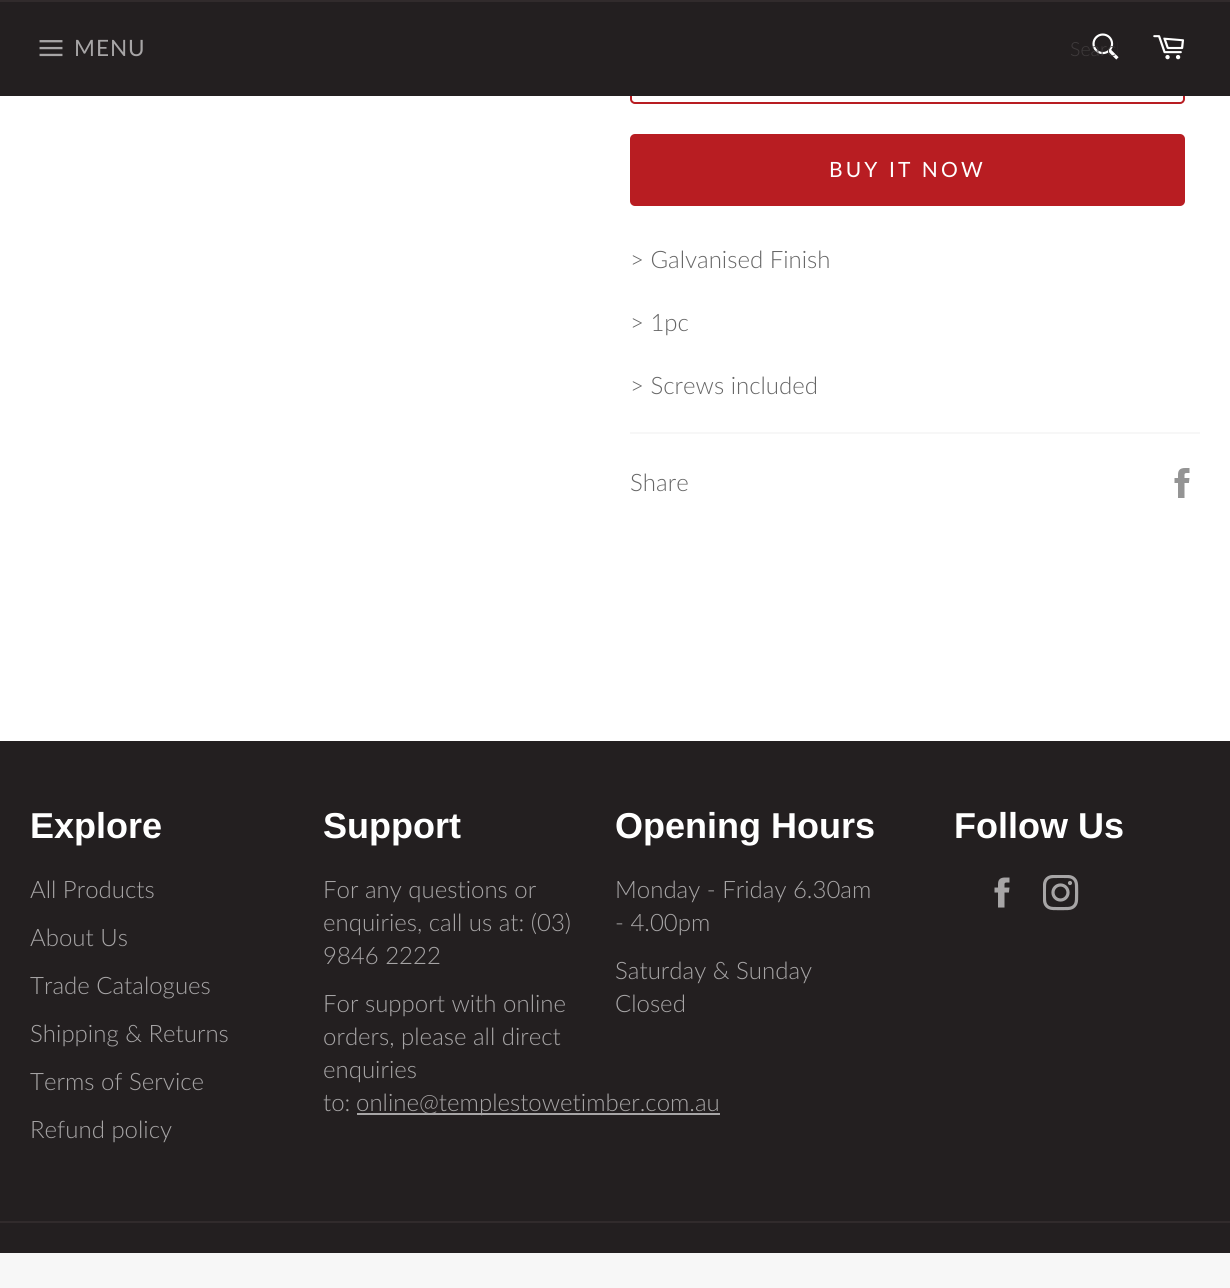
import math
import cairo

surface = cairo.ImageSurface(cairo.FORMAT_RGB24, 1230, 1288)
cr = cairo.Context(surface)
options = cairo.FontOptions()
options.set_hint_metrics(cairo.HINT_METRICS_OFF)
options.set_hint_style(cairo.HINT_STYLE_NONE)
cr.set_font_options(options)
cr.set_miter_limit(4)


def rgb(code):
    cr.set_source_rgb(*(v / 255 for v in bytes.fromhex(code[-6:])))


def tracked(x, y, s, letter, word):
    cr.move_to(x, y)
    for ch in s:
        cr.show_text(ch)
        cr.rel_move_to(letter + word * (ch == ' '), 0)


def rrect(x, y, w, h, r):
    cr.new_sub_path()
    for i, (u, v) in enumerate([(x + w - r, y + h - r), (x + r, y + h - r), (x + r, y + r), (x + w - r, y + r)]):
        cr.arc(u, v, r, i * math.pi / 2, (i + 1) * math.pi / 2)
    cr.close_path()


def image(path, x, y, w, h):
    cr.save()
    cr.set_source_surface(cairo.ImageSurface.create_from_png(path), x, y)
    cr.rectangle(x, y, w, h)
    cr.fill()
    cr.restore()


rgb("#f7f7f7")
cr.paint()
rgb("#ffffff")
cr.rectangle(0, 96, 1230, 645)
cr.fill()
rrect(631, 33, 553, 70, 4)
rgb("#b81d22")
cr.stroke()
rgb("#231f20")
cr.rectangle(0, 2, 1230, 94)
cr.fill()
rgb("#312b2c")
cr.rectangle(0, 0, 1230, 2)
cr.fill()
image("img/1.png", 39, 40, 24, 17)
image("img/2.png", 1092, 33, 27, 27)
image("img/3.png", 1153, 35, 31, 25)
rgb("#b81d22")
rrect(630, 134, 555, 72, 5)
cr.fill()
rgb("#f7f7f7")
cr.rectangle(630, 432, 570, 2)
cr.fill()
image("img/4.png", 1174, 468, 16, 30)
rgb("#231f20")
cr.rectangle(0, 741, 1230, 512)
cr.fill()
rgb("#a7a5a6")
cr.rectangle(357, 1113, 363, 2)
cr.fill()
image("img/5.png", 994, 877, 16, 31)
image("img/6.png", 1043, 875, 36, 36)
rgb("#312b2c")
cr.rectangle(0, 1221, 1230, 2)
cr.fill()
cr.select_font_face("Lato")
cr.set_font_size(22.5)
rgb("#a7a5a6")
tracked(74, 56, "MENU", 1, 0)
cr.save()
cr.rectangle(1070, 38, 48, 24)
cr.clip()
cr.select_font_face("Lato Light")
cr.set_font_size(19.5)
rgb("#403c3d")
cr.move_to(1070, 56)
cr.show_text("Search")
cr.restore()
cr.set_font_size(21)
rgb("#ffffff")
tracked(829, 177, "BUY IT NOW", 3.1, 0)
cr.select_font_face("Lato Light")
cr.set_font_size(24)
rgb("#666666")
for x, y, s in [
    (630, 268, "> Galvanised Finish"),
    (630, 331, "> 1pc"),
    (630, 394, "> Screws included"),
    (630, 491, "Share"),
]:
    cr.move_to(x, y)
    cr.show_text(s)
cr.select_font_face("Arimo", cairo.FONT_SLANT_NORMAL, cairo.FONT_WEIGHT_BOLD)
cr.set_font_size(36)
rgb("#ffffff")
cr.move_to(30, 838)
cr.show_text("Explore")
cr.select_font_face("Lato Light")
cr.set_font_size(24)
rgb("#a7a5a6")
for x, y, s in [
    (30, 898, "All Products"),
    (30, 946, "About Us"),
    (30, 994, "Trade Catalogues"),
    (30, 1042, "Shipping & Returns"),
    (30, 1090, "Terms of Service"),
    (30, 1138, "Refund policy"),
]:
    cr.move_to(x, y)
    cr.show_text(s)
cr.select_font_face("Arimo", cairo.FONT_SLANT_NORMAL, cairo.FONT_WEIGHT_BOLD)
cr.set_font_size(36)
rgb("#ffffff")
cr.move_to(323, 838)
cr.show_text("Support")
cr.select_font_face("Lato Light")
cr.set_font_size(24)
rgb("#a7a5a6")
for x, y, s in [
    (323, 898, "For any questions or"),
    (323, 931, "enquiries, call us at: (03)"),
    (323, 964, "9846 2222"),
    (323, 1012, "For support with online"),
    (323, 1045, "orders, please all direct"),
    (323, 1078, "enquiries"),
    (323, 1111, "to:"),
    (356, 1111, "online@templestowetimber.com.au"),
]:
    cr.move_to(x, y)
    cr.show_text(s)
cr.select_font_face("Arimo", cairo.FONT_SLANT_NORMAL, cairo.FONT_WEIGHT_BOLD)
cr.set_font_size(36)
rgb("#ffffff")
cr.move_to(615, 838)
cr.show_text("Opening Hours")
cr.select_font_face("Lato Light")
cr.set_font_size(24)
rgb("#a7a5a6")
for x, y, s in [
    (615, 898, "Monday - Friday 6.30am"),
    (615, 931, "- 4.00pm"),
    (615, 979, "Saturday & Sunday"),
    (615, 1012, "Closed"),
]:
    cr.move_to(x, y)
    cr.show_text(s)
cr.select_font_face("Arimo", cairo.FONT_SLANT_NORMAL, cairo.FONT_WEIGHT_BOLD)
cr.set_font_size(36)
rgb("#ffffff")
cr.move_to(954, 838)
cr.show_text("Follow Us")
surface.write_to_png("page.png")
